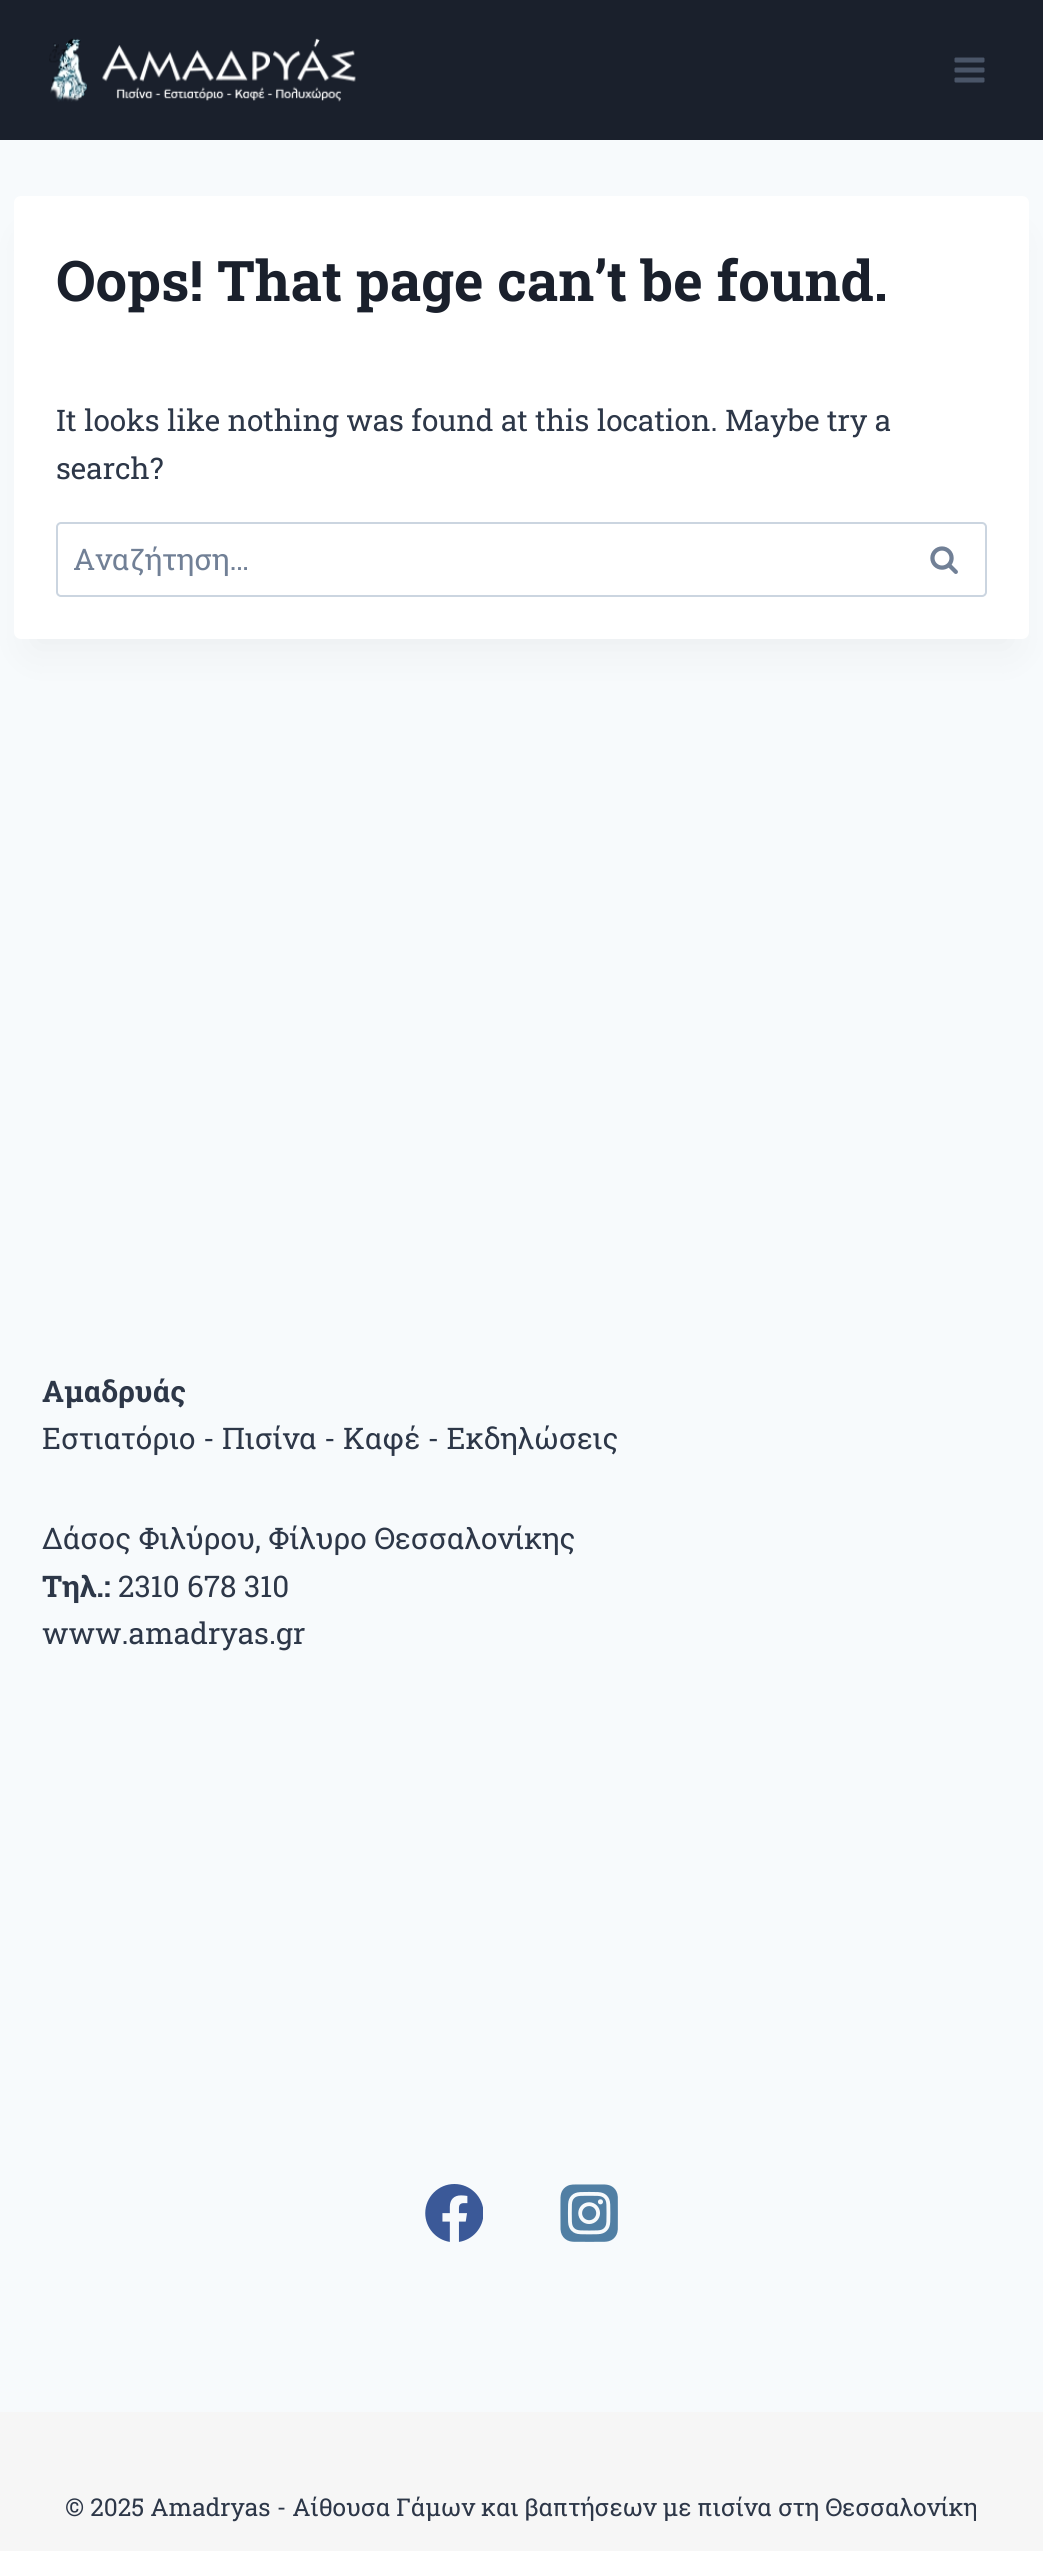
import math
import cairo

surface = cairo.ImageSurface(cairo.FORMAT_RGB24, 1043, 2551)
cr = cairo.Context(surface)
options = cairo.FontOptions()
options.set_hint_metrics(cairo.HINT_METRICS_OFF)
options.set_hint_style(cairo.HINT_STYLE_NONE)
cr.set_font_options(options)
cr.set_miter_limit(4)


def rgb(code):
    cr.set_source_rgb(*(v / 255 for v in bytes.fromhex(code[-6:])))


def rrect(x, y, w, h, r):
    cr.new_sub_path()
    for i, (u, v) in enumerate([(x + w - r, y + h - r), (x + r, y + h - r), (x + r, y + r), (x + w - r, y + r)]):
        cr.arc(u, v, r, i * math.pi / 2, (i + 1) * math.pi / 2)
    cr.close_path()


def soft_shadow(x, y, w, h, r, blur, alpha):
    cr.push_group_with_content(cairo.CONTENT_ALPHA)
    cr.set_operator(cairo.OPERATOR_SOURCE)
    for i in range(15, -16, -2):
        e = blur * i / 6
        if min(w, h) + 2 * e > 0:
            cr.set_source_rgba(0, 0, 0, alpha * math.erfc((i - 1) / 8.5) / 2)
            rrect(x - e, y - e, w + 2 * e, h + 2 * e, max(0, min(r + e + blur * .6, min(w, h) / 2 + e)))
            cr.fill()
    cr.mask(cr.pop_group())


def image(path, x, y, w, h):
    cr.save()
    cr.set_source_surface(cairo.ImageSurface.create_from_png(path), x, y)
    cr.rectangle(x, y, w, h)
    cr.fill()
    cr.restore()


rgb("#f7fafc")
cr.paint()
rgb("#1a202c")
cr.rectangle(0, 0, 1043, 140)
cr.fill()
image("img/1.png", 49, 38, 307, 64)
image("img/2.png", 954, 57, 31, 26)
rgb("#000000")
soft_shadow(32, 240, 980, 408, 0, 22, 0.05)
rgb("#ffffff")
rrect(14, 196, 1015, 443, 7)
cr.fill()
rrect(57, 523, 929, 73, 4)
rgb("#cbd5e0")
cr.stroke()
image("img/3.png", 930, 546, 28, 28)
image("img/4.png", 425, 2184, 58, 58)
image("img/5.png", 560, 2184, 58, 58)
rgb("#f6f6f6")
cr.rectangle(0, 2412, 1043, 139)
cr.fill()
cr.select_font_face("Roboto Slab", cairo.FONT_SLANT_NORMAL, cairo.FONT_WEIGHT_BOLD)
cr.set_font_size(56)
rgb("#1a202c")
cr.move_to(56, 301)
cr.show_text("Oops! That page can’t be found.")
cr.select_font_face("Roboto Slab")
cr.set_font_size(29.75)
rgb("#2d3748")
cr.move_to(56, 431)
cr.show_text("It looks like nothing was found at this location. Maybe try a")
cr.move_to(56, 479)
cr.show_text("search?")
rgb("#718096")
cr.move_to(73, 570)
cr.show_text("Αναζήτηση…")
cr.select_font_face("Roboto Slab", cairo.FONT_SLANT_NORMAL, cairo.FONT_WEIGHT_BOLD)
rgb("#2d3748")
cr.move_to(42, 1402)
cr.show_text("Αμαδρυάς")
cr.select_font_face("Roboto Slab")
cr.move_to(42, 1449)
cr.show_text("Εστιατόριο - Πισίνα - Καφέ - Εκδηλώσεις")
cr.move_to(42, 1549)
cr.show_text("Δάσος Φιλύρου, Φίλυρο Θεσσαλονίκης")
cr.select_font_face("Roboto Slab", cairo.FONT_SLANT_NORMAL, cairo.FONT_WEIGHT_BOLD)
cr.move_to(42, 1597)
cr.show_text("Τηλ.:")
cr.select_font_face("Roboto Slab")
cr.move_to(118, 1597)
cr.show_text("2310 678 310")
cr.move_to(42, 1644)
cr.show_text("www.amadryas.gr")
cr.set_font_size(24.5)
cr.move_to(65, 2516)
cr.show_text("© 2025 Amadryas - Αίθουσα Γάμων και βαπτήσεων με πισίνα στη Θεσσαλονίκη")
surface.write_to_png("page.png")
